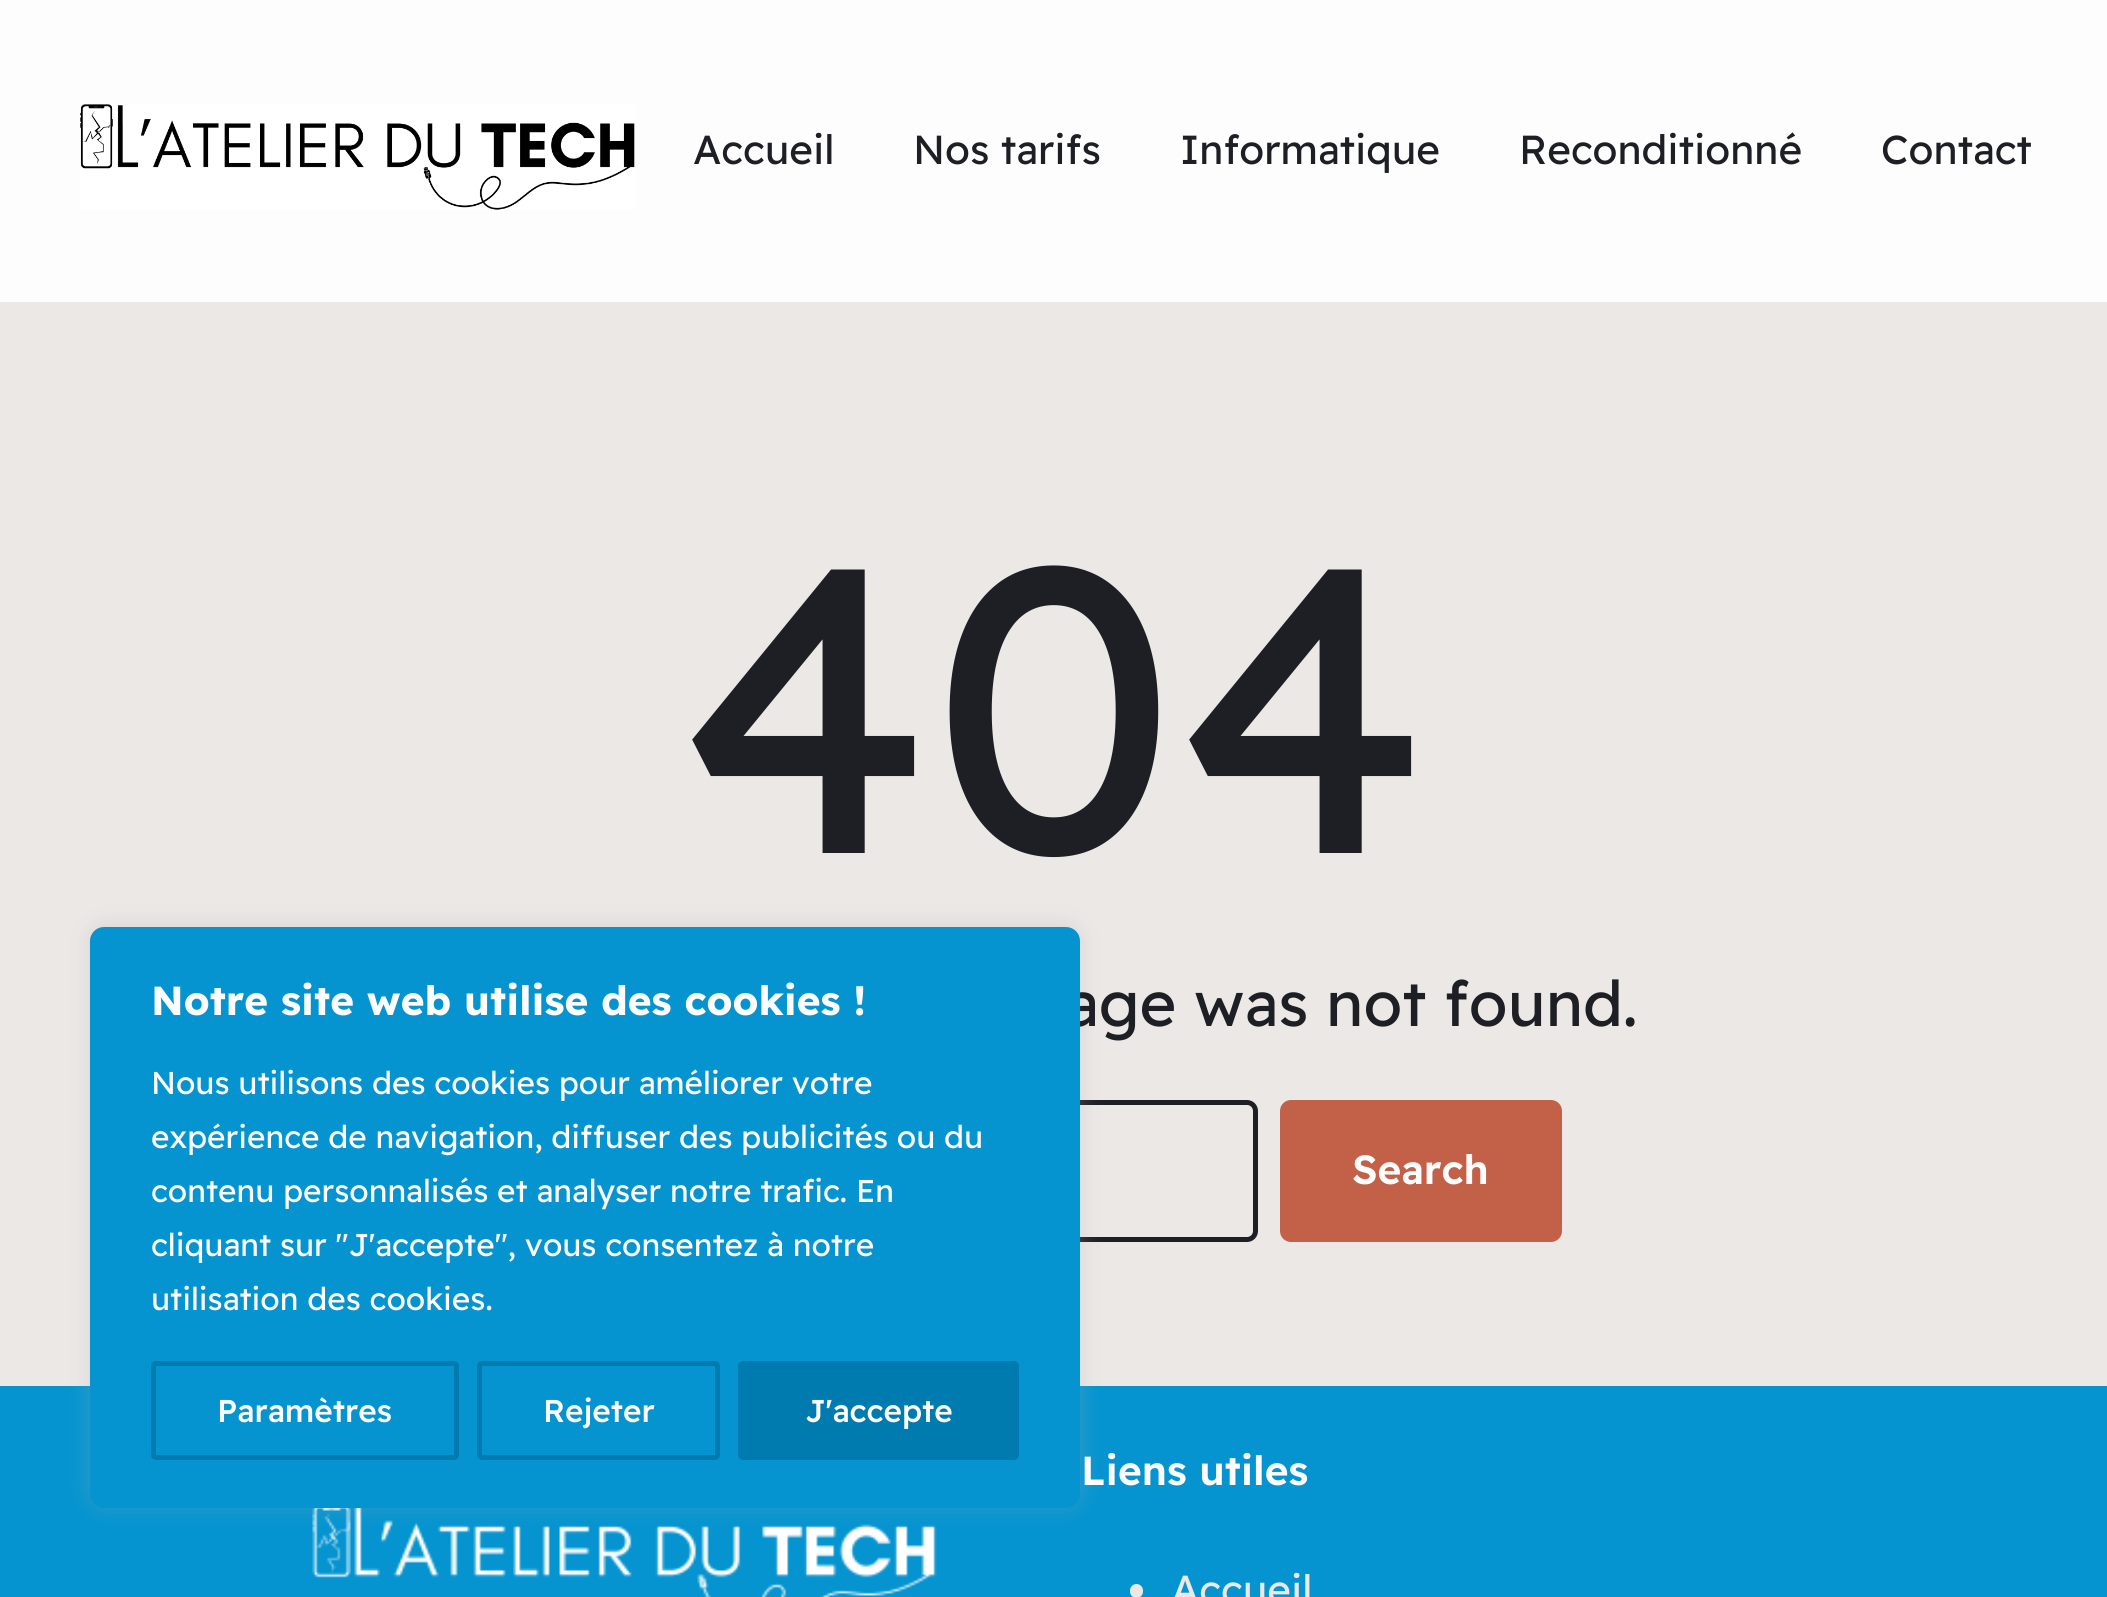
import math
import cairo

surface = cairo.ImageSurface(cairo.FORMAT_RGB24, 2107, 1597)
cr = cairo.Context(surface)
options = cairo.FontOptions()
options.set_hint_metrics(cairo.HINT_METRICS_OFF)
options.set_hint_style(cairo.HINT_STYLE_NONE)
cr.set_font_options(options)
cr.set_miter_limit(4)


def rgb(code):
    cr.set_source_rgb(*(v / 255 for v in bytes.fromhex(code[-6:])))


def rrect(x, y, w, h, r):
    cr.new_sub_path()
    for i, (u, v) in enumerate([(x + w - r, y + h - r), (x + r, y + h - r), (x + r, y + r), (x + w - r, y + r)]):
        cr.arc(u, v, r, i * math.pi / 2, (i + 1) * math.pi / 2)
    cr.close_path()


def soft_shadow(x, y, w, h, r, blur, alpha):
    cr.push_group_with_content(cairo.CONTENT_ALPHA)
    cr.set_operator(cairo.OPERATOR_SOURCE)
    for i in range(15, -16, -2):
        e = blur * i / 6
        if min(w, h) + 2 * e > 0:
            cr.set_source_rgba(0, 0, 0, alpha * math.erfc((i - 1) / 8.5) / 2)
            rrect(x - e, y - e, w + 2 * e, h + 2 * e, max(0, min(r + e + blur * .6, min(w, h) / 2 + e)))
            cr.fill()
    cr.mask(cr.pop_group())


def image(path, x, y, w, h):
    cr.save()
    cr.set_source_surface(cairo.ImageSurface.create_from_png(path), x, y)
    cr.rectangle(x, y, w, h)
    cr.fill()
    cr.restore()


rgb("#ebe8e6")
cr.paint()
rrect(551.5, 1102.5, 704, 137, 8.5)
rgb("#1d1f25")
cr.set_line_width(5)
cr.stroke()
rgb("#0594d0")
cr.rectangle(0, 1386, 2107, 211)
cr.fill()
image("img/2.png", 312, 1508, 625, 89)
rgb("#acabab")
soft_shadow(90, 925, 990, 580, 14, 11, 0.3)
rgb("#fdfdfd")
cr.rectangle(0, 0, 2107, 302)
cr.fill()
image("img/1.png", 80, 104, 555, 106)
rgb("#c26148")
rrect(1280, 1100, 282, 142, 11)
cr.fill()
rgb("#ebe8e6")
rrect(1130, 1584, 13, 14, 6.5)
cr.fill()
cr.select_font_face("Readex Pro")
cr.set_font_size(40.5)
rgb("#1d1f25")
for x, y, s in [
    (693, 164, "Accueil"),
    (913, 164, "Nos tarifs"),
    (1180, 164, "Informatique"),
    (1519, 164, "Reconditionné"),
    (1881, 164, "Contact"),
]:
    cr.move_to(x, y)
    cr.show_text(s)
cr.set_font_size(405)
cr.move_to(680, 853)
cr.show_text("404")
cr.set_font_size(63)
cr.move_to(1065, 1026)
cr.show_text("age was not found.")
rgb("#0594d0")
rrect(91, 928, 988, 579, 13)
cr.fill_preserve()
cr.set_line_width(2)
cr.stroke()
rgb("#007baf")
rrect(740.5, 1363.5, 276, 94, 2.5)
cr.fill_preserve()
cr.set_line_width(5)
cr.stroke()
cr.select_font_face("Readex Pro Medium")
cr.set_font_size(31.5)
rgb("#fdfdfd")
cr.move_to(805, 1422)
cr.show_text("J'accepte")
rrect(479.5, 1363.5, 238, 94, 2.5)
rgb("#007baf")
cr.stroke()
rgb("#fdfdfd")
cr.move_to(543, 1422)
cr.show_text("Rejeter")
rrect(153.5, 1363.5, 303, 94, 2.5)
rgb("#007baf")
cr.stroke()
rgb("#fdfdfd")
cr.move_to(217, 1422)
cr.show_text("Paramètres")
cr.select_font_face("Readex Pro")
for x, y, s in [
    (151, 1310, "utilisation des cookies."),
    (151, 1256, "cliquant sur \"J'accepte\", vous consentez à notre"),
    (151, 1202, "contenu personnalisés et analyser notre trafic. En"),
    (151, 1148, "expérience de navigation, diffuser des publicités ou du"),
    (151, 1094, "Nous utilisons des cookies pour améliorer votre"),
]:
    cr.move_to(x, y)
    cr.show_text(s)
cr.select_font_face("Readex Pro", cairo.FONT_SLANT_NORMAL, cairo.FONT_WEIGHT_BOLD)
cr.set_font_size(40.5)
cr.move_to(151, 1015)
cr.show_text("Notre site web utilise des cookies !")
cr.select_font_face("Readex Pro SemiBold")
cr.move_to(1352, 1184)
cr.show_text("Search")
cr.move_to(1081, 1485)
cr.show_text("Liens utiles")
cr.select_font_face("Readex Pro")
rgb("#ebe8e6")
cr.move_to(1171, 1604)
cr.show_text("Accueil")
surface.write_to_png("page.png")
